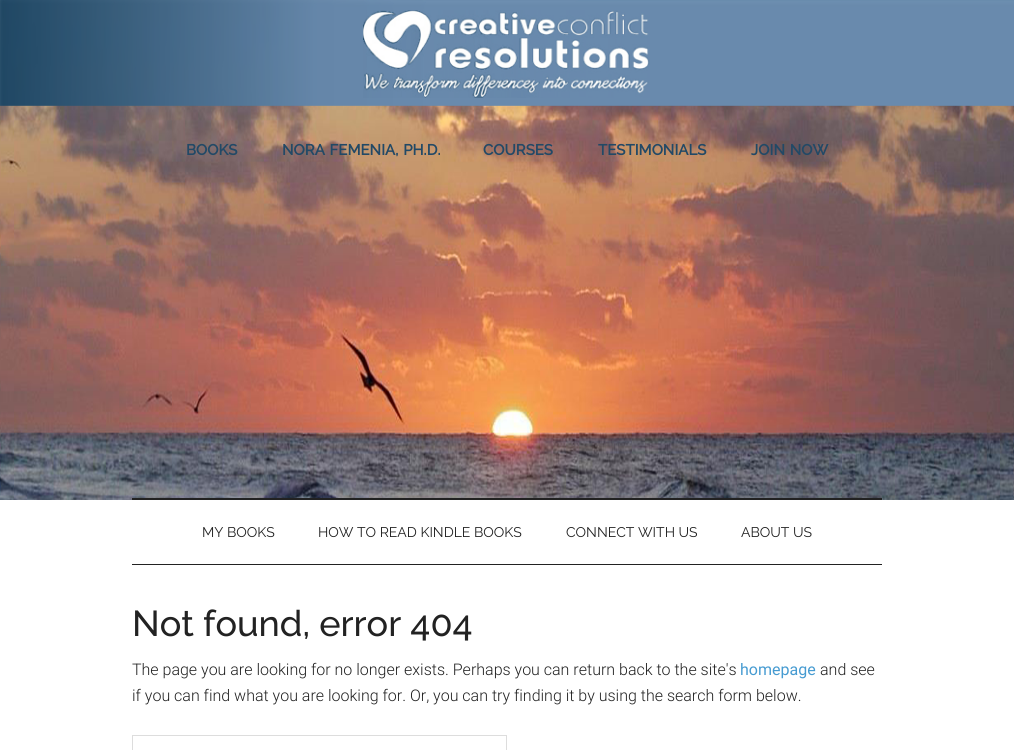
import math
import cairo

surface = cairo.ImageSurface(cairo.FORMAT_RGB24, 1014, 750)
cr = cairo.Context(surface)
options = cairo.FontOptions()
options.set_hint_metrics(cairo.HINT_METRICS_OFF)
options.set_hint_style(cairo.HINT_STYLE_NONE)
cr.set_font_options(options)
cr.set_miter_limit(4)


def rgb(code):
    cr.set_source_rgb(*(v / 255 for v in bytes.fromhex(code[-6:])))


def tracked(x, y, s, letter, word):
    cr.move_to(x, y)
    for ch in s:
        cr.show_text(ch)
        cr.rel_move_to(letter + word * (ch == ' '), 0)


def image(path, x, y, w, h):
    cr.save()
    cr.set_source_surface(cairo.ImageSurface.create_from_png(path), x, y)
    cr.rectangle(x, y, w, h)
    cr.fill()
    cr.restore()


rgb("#ffffff")
cr.paint()
image("img/1.png", 0, 0, 1014, 500)
rgb("#222222")
cr.rectangle(132, 498, 750, 2)
cr.fill()
image("img/2.png", 363, 10, 287, 88)
cr.rectangle(132, 564, 750, 1)
cr.fill()
cr.rectangle(132.5, 735.5, 374, 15)
rgb("#dddddd")
cr.set_line_width(1)
cr.stroke()
cr.select_font_face("Raleway", cairo.FONT_SLANT_NORMAL, cairo.FONT_WEIGHT_BOLD)
cr.set_font_size(15)
rgb("#224966")
cr.move_to(186, 155)
cr.show_text("BOOKS")
tracked(282, 155, "NORA FEMENIA, PH.D.", 0, 1)
cr.move_to(483, 155)
cr.show_text("COURSES")
cr.move_to(598, 155)
cr.show_text("TESTIMONIALS")
tracked(751, 155, "JOIN NOW", 0, 1)
cr.select_font_face("Raleway")
cr.set_font_size(14)
rgb("#222222")
for x, y, s in [
    (202, 537, "MY BOOKS"),
    (318, 537, "HOW TO READ KINDLE BOOKS"),
    (566, 537, "CONNECT WITH US"),
    (741, 537, "ABOUT US"),
]:
    cr.move_to(x, y)
    cr.show_text(s)
cr.select_font_face("Raleway Medium")
cr.set_font_size(36)
cr.move_to(132, 636)
cr.show_text("Not found, error 404")
cr.select_font_face("Roboto Light")
cr.set_font_size(16)
cr.move_to(132, 675)
cr.show_text("The page you are looking for no longer exists. Perhaps you can return back to the site's")
cr.select_font_face("Roboto")
rgb("#469bd1")
cr.move_to(740, 675)
cr.show_text("homepage")
cr.select_font_face("Roboto Light")
rgb("#222222")
cr.move_to(820, 675)
cr.show_text("and see")
cr.move_to(132, 701)
cr.show_text("if you can find what you are looking for. Or, you can try finding it by using the search form below.")
surface.write_to_png("page.png")
